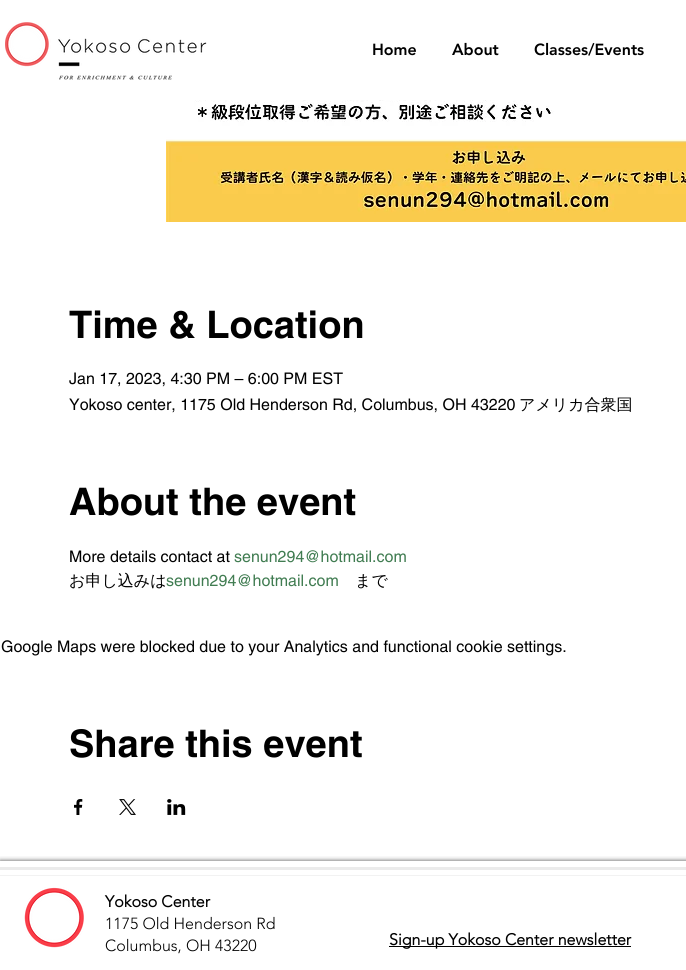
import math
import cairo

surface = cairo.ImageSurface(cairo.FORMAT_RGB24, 686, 970)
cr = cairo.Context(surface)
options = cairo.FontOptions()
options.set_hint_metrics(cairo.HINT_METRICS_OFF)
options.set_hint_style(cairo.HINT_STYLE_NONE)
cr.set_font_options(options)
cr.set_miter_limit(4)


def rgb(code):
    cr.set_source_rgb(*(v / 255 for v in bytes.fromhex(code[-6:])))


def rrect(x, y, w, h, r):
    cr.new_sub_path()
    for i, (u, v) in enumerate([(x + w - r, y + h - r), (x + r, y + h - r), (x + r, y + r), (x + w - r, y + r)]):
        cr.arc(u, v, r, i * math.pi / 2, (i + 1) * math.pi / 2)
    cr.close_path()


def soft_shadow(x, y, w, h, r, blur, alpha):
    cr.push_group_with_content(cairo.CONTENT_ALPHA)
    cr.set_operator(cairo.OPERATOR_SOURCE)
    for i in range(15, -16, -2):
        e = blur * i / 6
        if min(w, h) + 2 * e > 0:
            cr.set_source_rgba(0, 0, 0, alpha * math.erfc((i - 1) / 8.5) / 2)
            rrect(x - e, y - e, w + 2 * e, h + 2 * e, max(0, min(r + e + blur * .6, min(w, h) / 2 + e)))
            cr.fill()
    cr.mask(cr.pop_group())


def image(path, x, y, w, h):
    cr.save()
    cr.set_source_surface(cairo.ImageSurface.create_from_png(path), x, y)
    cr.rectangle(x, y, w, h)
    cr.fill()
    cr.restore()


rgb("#ffffff")
cr.paint()
image("img/1.png", 5, 22, 202, 58)
image("img/2.png", 166, 100, 520, 122)
image("img/3.png", 74, 799, 9, 16)
image("img/4.png", 119, 799, 17, 16)
image("img/5.png", 167, 799, 19, 16)
cr.save()
cr.rectangle(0, 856, 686, 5)
cr.clip()
rgb("#000000")
soft_shadow(0, 861, 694, 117, 0, 2.5, 0.7)
cr.restore()
rgb("#ebebeb")
cr.rectangle(0, 867, 686, 3)
cr.fill()
rgb("#f2f2f2")
cr.rectangle(0, 875, 686, 1)
cr.fill()
image("img/6.png", 24, 887, 60, 61)
rgb("#000000")
cr.rectangle(389, 946, 242, 1)
cr.fill()
cr.select_font_face("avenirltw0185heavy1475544 Black")
cr.set_font_size(16)
for x, y, s in [
    (372, 55, "Home"),
    (452, 55, "About"),
    (534, 55, "Classes/Events"),
]:
    cr.move_to(x, y)
    cr.show_text(s)
cr.select_font_face("helvetica", cairo.FONT_SLANT_NORMAL, cairo.FONT_WEIGHT_BOLD)
cr.set_font_size(38)
cr.move_to(69, 338)
cr.show_text("Time & Location")
cr.select_font_face("helvetica")
cr.set_font_size(16)
cr.move_to(69, 384)
cr.show_text("Jan 17, 2023, 4:30 PM – 6:00 PM EST")
cr.move_to(69, 410)
cr.show_text("Yokoso center, 1175 Old Henderson Rd, Columbus, OH 43220")
cr.select_font_face("WenQuanYi Zen Hei Medium")
cr.move_to(519, 410)
cr.show_text("アメリカ合衆国")
cr.select_font_face("helvetica", cairo.FONT_SLANT_NORMAL, cairo.FONT_WEIGHT_BOLD)
cr.set_font_size(38)
cr.move_to(69, 515)
cr.show_text("About the event")
cr.select_font_face("helvetica")
cr.set_font_size(16)
cr.move_to(69, 562)
cr.show_text("More details contact at")
rgb("#407c51")
cr.move_to(234, 562)
cr.show_text("senun294@hotmail.com")
cr.select_font_face("WenQuanYi Zen Hei Medium")
rgb("#000000")
cr.move_to(69, 586)
cr.show_text("お申し込みは")
cr.select_font_face("helvetica")
rgb("#407c51")
cr.move_to(166, 586)
cr.show_text("senun294@hotmail.com")
cr.select_font_face("WenQuanYi Zen Hei Medium")
rgb("#000000")
cr.move_to(355, 586)
cr.show_text("まで")
cr.select_font_face("helvetica")
cr.move_to(1, 652)
cr.show_text("Google Maps were blocked due to your Analytics and functional cookie settings.")
cr.select_font_face("helvetica", cairo.FONT_SLANT_NORMAL, cairo.FONT_WEIGHT_BOLD)
cr.set_font_size(38)
cr.move_to(69, 757)
cr.show_text("Share this event")
cr.select_font_face("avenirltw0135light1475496", cairo.FONT_SLANT_NORMAL, cairo.FONT_WEIGHT_BOLD)
cr.set_font_size(16)
cr.move_to(105, 907)
cr.show_text("Yokoso Center")
cr.select_font_face("avenirltw0135light1475496 Light")
cr.move_to(105, 929)
cr.show_text("1175 Old Henderson Rd")
cr.move_to(105, 951)
cr.show_text("Columbus, OH 43220")
cr.select_font_face("avenirltw0135light1475496", cairo.FONT_SLANT_NORMAL, cairo.FONT_WEIGHT_BOLD)
cr.move_to(389, 945)
cr.show_text("Sign-up Yokoso Center newsletter")
surface.write_to_png("page.png")
